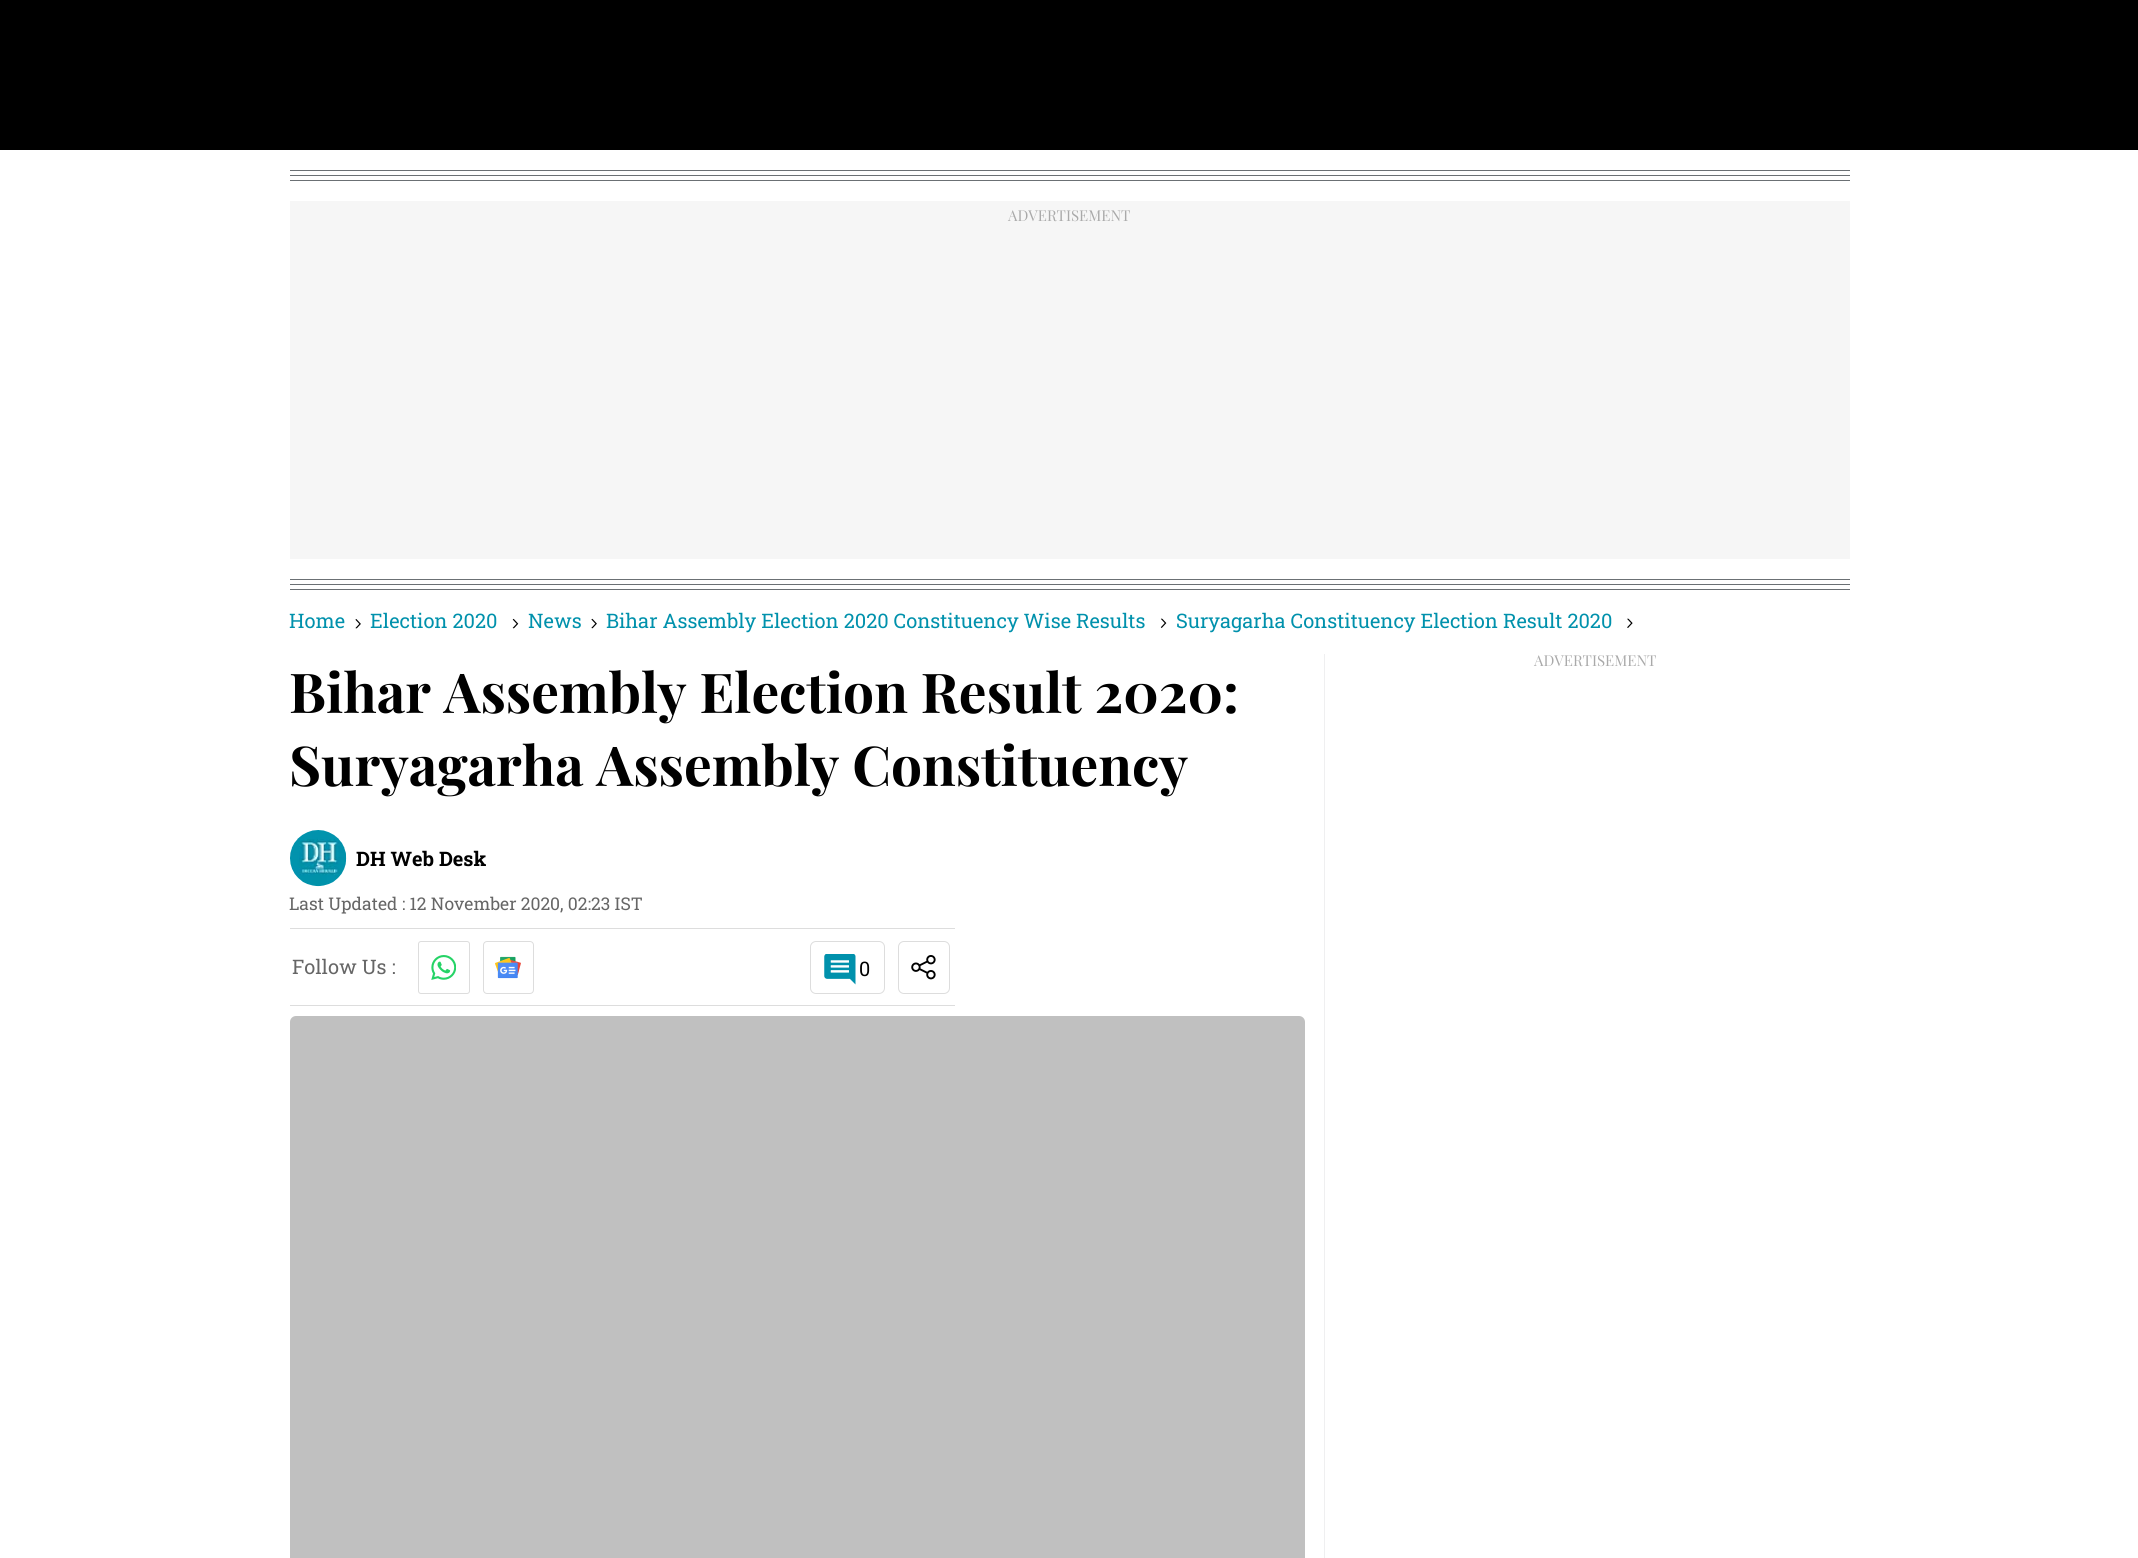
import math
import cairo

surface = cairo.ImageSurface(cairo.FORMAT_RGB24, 2138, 1558)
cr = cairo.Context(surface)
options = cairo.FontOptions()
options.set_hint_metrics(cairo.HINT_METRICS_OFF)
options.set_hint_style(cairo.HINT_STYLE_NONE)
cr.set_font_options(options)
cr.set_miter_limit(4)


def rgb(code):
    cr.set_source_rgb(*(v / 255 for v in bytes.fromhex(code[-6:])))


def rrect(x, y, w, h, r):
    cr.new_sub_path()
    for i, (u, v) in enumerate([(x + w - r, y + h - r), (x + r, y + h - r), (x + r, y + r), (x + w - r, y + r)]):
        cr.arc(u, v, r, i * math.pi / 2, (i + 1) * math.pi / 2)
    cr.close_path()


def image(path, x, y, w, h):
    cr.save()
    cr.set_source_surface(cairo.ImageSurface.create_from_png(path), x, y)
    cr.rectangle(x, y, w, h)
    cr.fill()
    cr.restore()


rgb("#ffffff")
cr.paint()
for x, y, w, h, color in [
    (0, 0, 2138, 150, "#000000"),
    (290, 170, 1560, 1, "#6b7074"),
    (290, 175, 1560, 1, "#6b7074"),
    (290, 180, 1560, 1, "#6b7074"),
    (290, 201, 1560, 358, "#f6f6f6"),
    (290, 579, 1560, 1, "#6b7074"),
    (290, 584, 1560, 1, "#6b7074"),
    (290, 589, 1560, 1, "#6b7074"),
]:
    rgb(color)
    cr.rectangle(x, y, w, h)
    cr.fill()
image("img/1.png", 355, 619, 6, 10)
image("img/2.png", 512, 618, 7, 11)
image("img/3.png", 591, 618, 6, 11)
image("img/4.png", 1160, 618, 7, 10)
image("img/5.png", 1627, 618, 6, 10)
image("img/6.png", 290, 830, 57, 57)
rgb("#dddddd")
cr.rectangle(290, 928, 665, 1)
cr.fill()
cr.rectangle(290, 1005, 665, 1)
cr.fill()
rrect(418.5, 941.5, 51, 52, 2.5)
cr.set_line_width(1)
cr.stroke()
image("img/7.png", 431, 955, 25, 25)
rrect(483.5, 941.5, 50, 52, 3.5)
cr.stroke()
image("img/8.png", 495, 956, 26, 23)
rrect(810.5, 941.5, 74, 52, 5.5)
cr.stroke()
image("img/9.png", 824, 954, 32, 31)
rrect(898.5, 941.5, 51, 52, 5.5)
cr.stroke()
image("img/10.png", 911, 955, 25, 25)
rgb("#c0c0c0")
rrect(290, 1016, 1015, 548, 6)
cr.fill()
rgb("#efeff0")
cr.rectangle(1324, 654, 1, 904)
cr.fill()
cr.select_font_face("Playfair Display")
cr.set_font_size(15)
rgb("#a9a9a9")
cr.move_to(1008, 221)
cr.show_text("ADVERTISEMENT")
cr.select_font_face("Roboto Slab")
cr.set_font_size(20)
rgb("#0091ac")
for x, y, s in [
    (289, 628, "Home"),
    (370, 628, "Election 2020"),
    (528, 628, "News"),
    (606, 628, "Bihar Assembly Election 2020 Constituency Wise Results"),
    (1176, 628, "Suryagarha Constituency Election Result 2020"),
]:
    cr.move_to(x, y)
    cr.show_text(s)
cr.select_font_face("Playfair Display")
cr.set_font_size(15)
rgb("#a9a9a9")
cr.move_to(1534, 666)
cr.show_text("ADVERTISEMENT")
cr.select_font_face("Playfair Display", cairo.FONT_SLANT_NORMAL, cairo.FONT_WEIGHT_BOLD)
cr.set_font_size(55)
rgb("#000000")
cr.move_to(289, 713)
cr.show_text("Bihar Assembly Election Result 2020:")
cr.move_to(289, 786)
cr.show_text("Suryagarha Assembly Constituency")
cr.select_font_face("Roboto Slab", cairo.FONT_SLANT_NORMAL, cairo.FONT_WEIGHT_BOLD)
cr.set_font_size(20)
cr.move_to(356, 866)
cr.show_text("DH Web Desk")
cr.select_font_face("Roboto Slab")
cr.set_font_size(17.5)
rgb("#666666")
cr.move_to(289, 910)
cr.show_text("Last Updated : 12 November 2020, 02:23 IST")
cr.set_font_size(20)
cr.move_to(292, 974)
cr.show_text("Follow Us :")
cr.select_font_face("Roboto")
rgb("#000000")
cr.move_to(859, 976)
cr.show_text("0")
surface.write_to_png("page.png")
